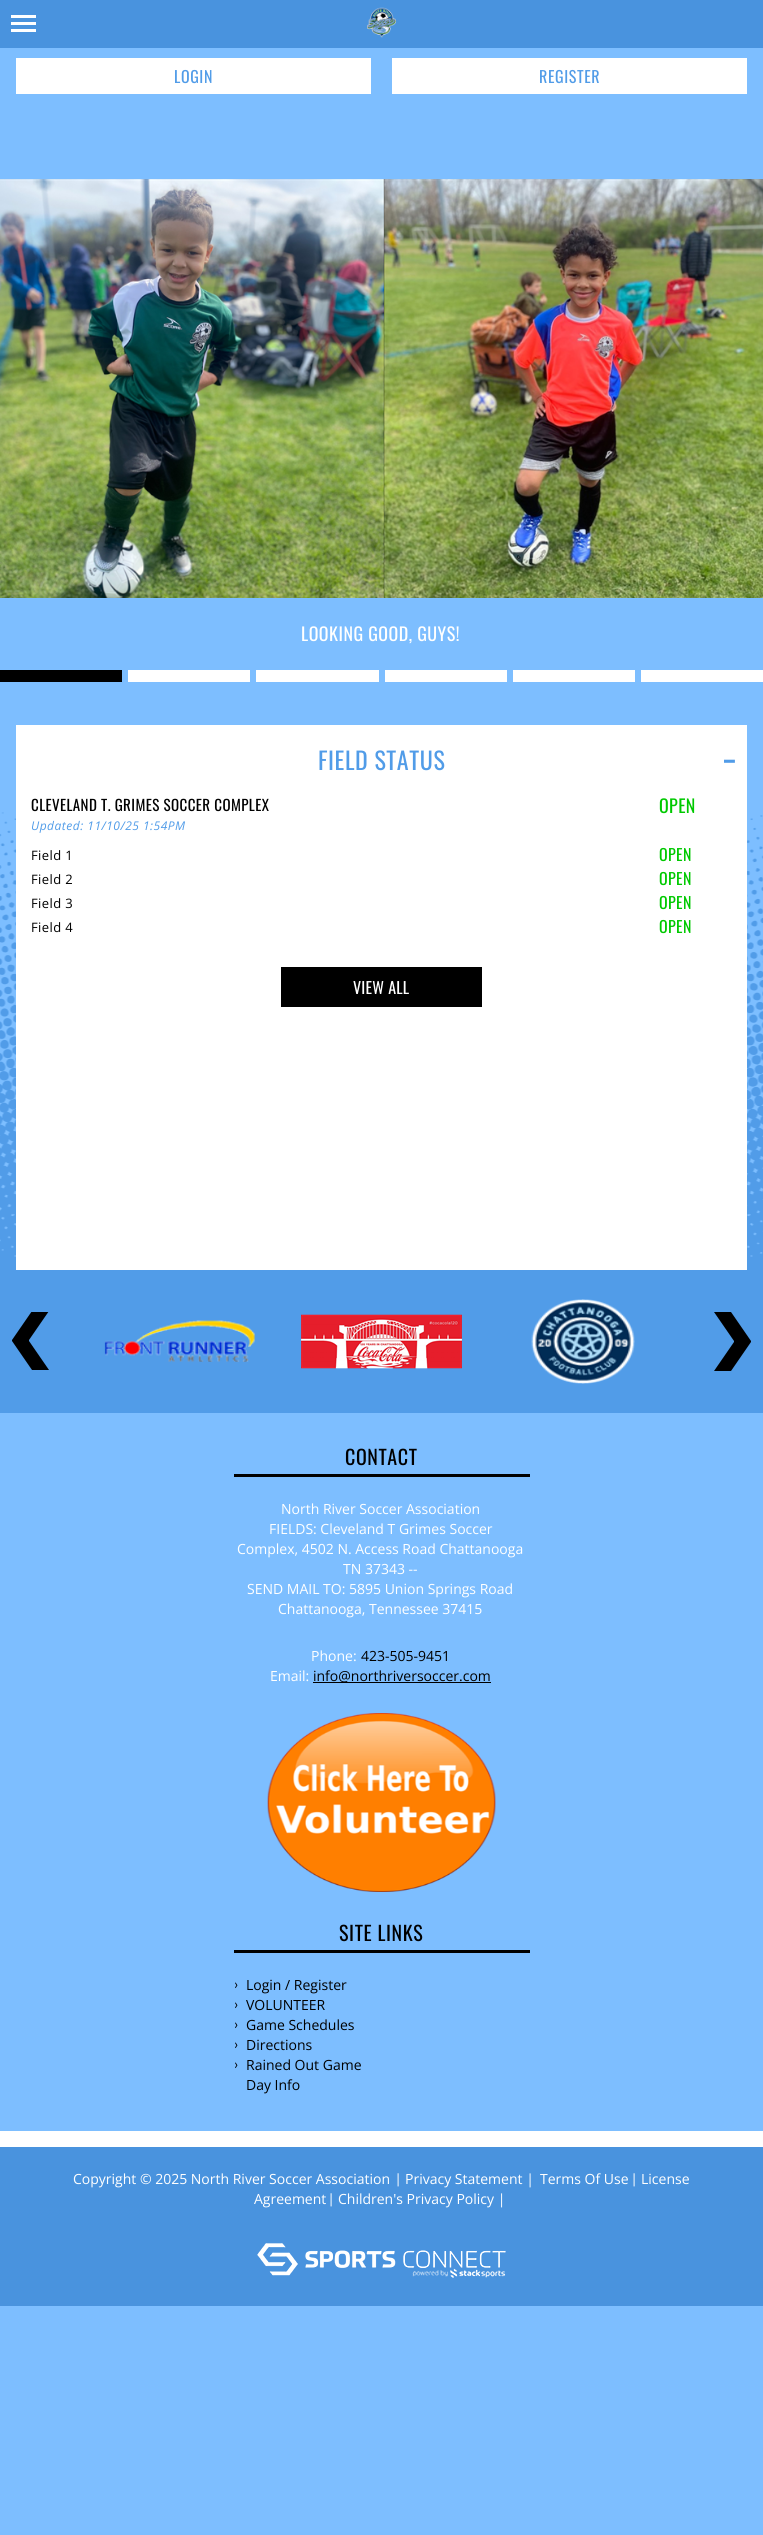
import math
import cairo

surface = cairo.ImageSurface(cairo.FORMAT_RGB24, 763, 2535)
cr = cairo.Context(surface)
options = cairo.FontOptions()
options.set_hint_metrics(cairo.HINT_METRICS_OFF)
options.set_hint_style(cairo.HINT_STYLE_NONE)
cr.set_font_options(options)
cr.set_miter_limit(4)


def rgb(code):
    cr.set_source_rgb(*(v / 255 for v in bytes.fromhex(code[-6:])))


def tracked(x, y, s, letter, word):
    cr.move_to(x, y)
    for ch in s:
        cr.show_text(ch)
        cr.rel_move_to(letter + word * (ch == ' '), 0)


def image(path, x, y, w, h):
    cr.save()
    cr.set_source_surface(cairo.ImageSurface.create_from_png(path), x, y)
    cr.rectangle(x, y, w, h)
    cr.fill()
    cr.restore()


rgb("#7dbeff")
cr.paint()
rgb("#4993de")
cr.rectangle(0, 0, 763, 48)
cr.fill()
image("img/1.png", 11, 15, 25, 17)
image("img/2.png", 367, 7, 29, 31)
rgb("#ffffff")
cr.rectangle(16, 58, 355, 36)
cr.fill()
cr.rectangle(392, 58, 355, 36)
cr.fill()
image("img/3.png", 0, 812, 763, 458)
image("img/4.png", 0, 179, 763, 419)
for x, y, w, h, color in [
    (0, 670, 122, 12, "#000000"),
    (128, 670, 122, 12, "#ffffff"),
    (256, 670, 123, 12, "#ffffff"),
    (385, 670, 122, 12, "#ffffff"),
    (513, 670, 122, 12, "#ffffff"),
    (641, 670, 122, 12, "#ffffff"),
    (16, 725, 731, 545, "#ffffff"),
    (281, 967, 201, 40, "#000000"),
    (0, 1270, 763, 143, "#519ce8"),
]:
    rgb(color)
    cr.rectangle(x, y, w, h)
    cr.fill()
cr.save()
cr.rectangle(12, 1312, 37, 59)
cr.clip()
rgb("#000000")
cr.new_path()
cr.move_to(49, 1370)
cr.line_to(32, 1370)
cr.line_to(12, 1341)
cr.line_to(12, 1340)
cr.line_to(32, 1311)
cr.line_to(49, 1311)
cr.line_to(29, 1340)
cr.line_to(29, 1341)
cr.close_path()
cr.fill()
cr.restore()
image("img/5.png", 104, 1320, 151, 42)
image("img/6.png", 301, 1314, 161, 55)
image("img/7.png", 531, 1299, 104, 85)
rgb("#000000")
cr.new_path()
cr.move_to(714, 1312)
cr.line_to(731, 1312)
cr.line_to(751, 1341)
cr.line_to(751, 1342)
cr.line_to(731, 1371)
cr.line_to(714, 1371)
cr.line_to(734, 1342)
cr.line_to(734, 1341)
cr.close_path()
cr.fill()
cr.rectangle(234, 1474, 296, 3)
cr.fill()
cr.rectangle(313, 1682, 178, 1)
cr.fill()
image("img/8.png", 267, 1713, 229, 179)
for x, y, w, h, color in [
    (234, 1950, 296, 3, "#000000"),
    (0, 2131, 763, 16, "#ffffff"),
    (0, 2147, 763, 159, "#4993de"),
]:
    rgb(color)
    cr.rectangle(x, y, w, h)
    cr.fill()
image("img/9.png", 257, 2243, 249, 35)
cr.select_font_face("Oswald")
cr.set_font_size(16)
rgb("#519ce8")
tracked(174, 83, "LOGIN", 0.6, 0)
tracked(539, 83, "REGISTER", 0.6, 0)
cr.set_font_size(18)
rgb("#ffffff")
tracked(301, 641, "LOOKING GOOD, GUYS!", 0.5, 0)
cr.set_font_size(24)
rgb("#519ce8")
tracked(318, 770, "FIELD STATUS", 0.6, 0)
cr.select_font_face("Oswald SemiBold")
cr.set_font_size(30)
tracked(724, 758, "_", 0.6, 0)
cr.select_font_face("Oswald")
cr.set_font_size(15)
rgb("#000000")
tracked(31, 811, "CLEVELAND T. GRIMES SOCCER COMPLEX", 0.4, 0)
cr.set_font_size(18)
rgb("#00c900")
tracked(659, 813, "OPEN", 0.4, 0)
cr.select_font_face("Open Sans", cairo.FONT_SLANT_ITALIC)
cr.set_font_size(12)
rgb("#519ce8")
tracked(31, 830, "Updated: 11/10/25 1:54PM", 0.5, 0)
cr.select_font_face("Open Sans")
cr.set_font_size(13)
rgb("#000000")
tracked(31, 860, "Field 1", 0.4, 0)
cr.select_font_face("Oswald")
cr.set_font_size(16)
rgb("#00c900")
tracked(659, 861, "OPEN", 0.4, 0)
cr.select_font_face("Open Sans")
cr.set_font_size(13)
rgb("#000000")
tracked(31, 884, "Field 2", 0.4, 0)
cr.select_font_face("Oswald")
cr.set_font_size(16)
rgb("#00c900")
tracked(659, 885, "OPEN", 0.4, 0)
cr.select_font_face("Open Sans")
cr.set_font_size(13)
rgb("#000000")
tracked(31, 908, "Field 3", 0.4, 0)
cr.select_font_face("Oswald")
cr.set_font_size(16)
rgb("#00c900")
tracked(659, 909, "OPEN", 0.4, 0)
cr.select_font_face("Open Sans")
cr.set_font_size(13)
rgb("#000000")
tracked(31, 932, "Field 4", 0.4, 0)
cr.select_font_face("Oswald")
cr.set_font_size(16)
rgb("#00c900")
tracked(659, 933, "OPEN", 0.4, 0)
rgb("#ffffff")
tracked(353, 994, "VIEW ALL", 0.25, 0)
cr.set_font_size(20)
rgb("#000000")
tracked(345, 1465, "CONTACT", 0.6, 0)
cr.select_font_face("Open Sans")
cr.set_font_size(14)
rgb("#ffffff")
for x, y, s in [
    (281, 1514, "North River Soccer Association"),
    (269, 1534, "FIELDS: Cleveland T Grimes Soccer"),
    (237, 1554, "Complex, 4502 N. Access Road Chattanooga"),
    (343, 1574, "TN 37343 --"),
    (247, 1594, "SEND MAIL TO: 5895 Union Springs Road"),
    (278, 1614, "Chattanooga, Tennessee 37415"),
    (311, 1661, "Phone:"),
]:
    cr.move_to(x, y)
    cr.show_text(s)
rgb("#000000")
cr.move_to(361, 1661)
cr.show_text("423-505-9451")
rgb("#ffffff")
cr.move_to(270, 1681)
cr.show_text("Email:")
rgb("#000000")
cr.move_to(313, 1681)
cr.show_text("info@northriversoccer.com")
cr.select_font_face("Oswald")
cr.set_font_size(20)
tracked(339, 1941, "SITE LINKS", 0.6, 0)
cr.select_font_face("Lato")
cr.set_font_size(14)
cr.move_to(234, 1989)
cr.show_text("›")
cr.select_font_face("Open Sans")
cr.move_to(246, 1990)
cr.show_text("Login / Register")
cr.select_font_face("Lato")
cr.move_to(234, 2009)
cr.show_text("›")
cr.select_font_face("Open Sans")
cr.move_to(246, 2010)
cr.show_text("VOLUNTEER")
cr.select_font_face("Lato")
cr.move_to(234, 2029)
cr.show_text("›")
cr.select_font_face("Open Sans")
cr.move_to(246, 2030)
cr.show_text("Game Schedules")
cr.select_font_face("Lato")
cr.move_to(234, 2049)
cr.show_text("›")
cr.select_font_face("Open Sans")
cr.move_to(246, 2050)
cr.show_text("Directions")
cr.select_font_face("Lato")
cr.move_to(234, 2069)
cr.show_text("›")
cr.select_font_face("Open Sans")
cr.move_to(246, 2070)
cr.show_text("Rained Out Game")
cr.move_to(246, 2090)
cr.show_text("Day Info")
rgb("#ffffff")
cr.move_to(73, 2184)
cr.show_text("Copyright © 2025 North River Soccer Association")
cr.select_font_face("Lato")
cr.move_to(396, 2184)
cr.show_text("|")
cr.select_font_face("Open Sans")
cr.move_to(405, 2184)
cr.show_text("Privacy Statement |")
cr.move_to(540, 2184)
cr.show_text("Terms Of Use")
cr.select_font_face("Lato")
cr.move_to(632, 2184)
cr.show_text("|")
cr.select_font_face("Open Sans")
cr.move_to(641, 2184)
cr.show_text("License")
cr.move_to(254, 2204)
cr.show_text("Agreement")
cr.select_font_face("Lato")
cr.move_to(329, 2204)
cr.show_text("|")
cr.select_font_face("Open Sans")
cr.move_to(338, 2204)
cr.show_text("Children's Privacy Policy |")
surface.write_to_png("page.png")
